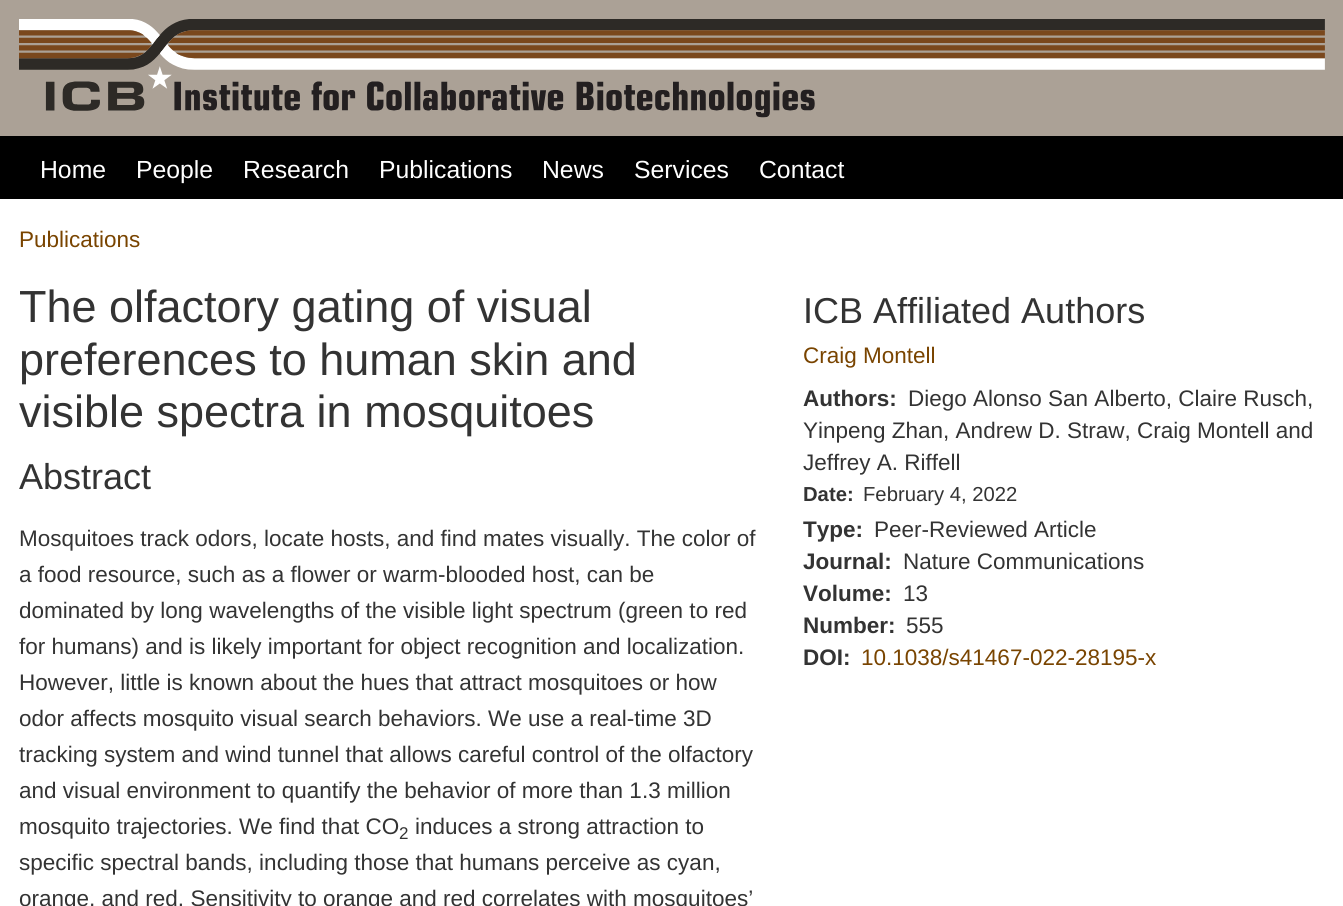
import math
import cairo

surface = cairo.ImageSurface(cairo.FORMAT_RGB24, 1343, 906)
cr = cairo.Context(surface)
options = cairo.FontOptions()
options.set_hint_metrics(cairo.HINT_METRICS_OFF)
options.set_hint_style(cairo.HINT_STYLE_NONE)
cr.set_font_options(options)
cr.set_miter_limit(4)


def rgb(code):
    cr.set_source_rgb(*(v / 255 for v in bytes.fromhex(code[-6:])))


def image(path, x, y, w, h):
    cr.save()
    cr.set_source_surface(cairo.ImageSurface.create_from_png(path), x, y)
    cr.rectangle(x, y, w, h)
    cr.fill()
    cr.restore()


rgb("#aba196")
cr.paint()
image("img/1.png", 19, 19, 1306, 99)
rgb("#000000")
cr.rectangle(0, 136, 1343, 63)
cr.fill()
rgb("#ffffff")
cr.rectangle(0, 199, 1343, 707)
cr.fill()
cr.select_font_face("Liberation Sans")
cr.set_font_size(24.75)
for x, y, s in [
    (40, 178, "Home"),
    (136, 178, "People"),
    (243, 178, "Research"),
    (379, 178, "Publications"),
    (542, 178, "News"),
    (634, 178, "Services"),
    (759, 178, "Contact"),
]:
    cr.move_to(x, y)
    cr.show_text(s)
cr.set_font_size(22.5)
rgb("#794400")
cr.move_to(19, 247)
cr.show_text("Publications")
cr.set_font_size(45)
rgb("#333333")
for x, y, s in [
    (19, 322, "The olfactory gating of visual"),
    (19, 375, "preferences to human skin and"),
    (19, 427, "visible spectra in mosquitoes"),
]:
    cr.move_to(x, y)
    cr.show_text(s)
cr.set_font_size(36)
cr.move_to(19, 489)
cr.show_text("Abstract")
cr.set_font_size(22.5)
for x, y, s in [
    (19, 546, "Mosquitoes track odors, locate hosts, and find mates visually. The color of"),
    (19, 582, "a food resource, such as a flower or warm-blooded host, can be"),
    (19, 618, "dominated by long wavelengths of the visible light spectrum (green to red"),
    (19, 654, "for humans) and is likely important for object recognition and localization."),
    (19, 690, "However, little is known about the hues that attract mosquitoes or how"),
    (19, 726, "odor affects mosquito visual search behaviors. We use a real-time 3D"),
    (19, 762, "tracking system and wind tunnel that allows careful control of the olfactory"),
    (19, 798, "and visual environment to quantify the behavior of more than 1.3 million"),
    (19, 834, "mosquito trajectories. We find that CO"),
]:
    cr.move_to(x, y)
    cr.show_text(s)
cr.set_font_size(17)
cr.move_to(399, 839)
cr.show_text("2")
cr.set_font_size(22.5)
for x, y, s in [
    (415, 834, "induces a strong attraction to"),
    (19, 870, "specific spectral bands, including those that humans perceive as cyan,"),
    (19, 906, "orange, and red. Sensitivity to orange and red correlates with mosquitoes’"),
]:
    cr.move_to(x, y)
    cr.show_text(s)
cr.set_font_size(36)
cr.move_to(803, 323)
cr.show_text("ICB Affiliated Authors")
cr.set_font_size(22.5)
rgb("#794400")
cr.move_to(803, 363)
cr.show_text("Craig Montell")
rgb("#333333")
for x, y, s in [
    (908, 406, "Diego Alonso San Alberto, Claire Rusch,"),
    (803, 438, "Yinpeng Zhan, Andrew D. Straw, Craig Montell and"),
    (803, 470, "Jeffrey A. Riffell"),
]:
    cr.move_to(x, y)
    cr.show_text(s)
cr.select_font_face("Liberation Sans", cairo.FONT_SLANT_NORMAL, cairo.FONT_WEIGHT_BOLD)
cr.move_to(803, 406)
cr.show_text("Authors:")
cr.set_font_size(20.25)
cr.move_to(803, 501)
cr.show_text("Date:")
cr.select_font_face("Liberation Sans")
cr.move_to(863, 501)
cr.show_text("February 4, 2022")
cr.select_font_face("Liberation Sans", cairo.FONT_SLANT_NORMAL, cairo.FONT_WEIGHT_BOLD)
cr.set_font_size(22.5)
cr.move_to(803, 537)
cr.show_text("Type:")
cr.select_font_face("Liberation Sans")
cr.move_to(874, 537)
cr.show_text("Peer-Reviewed Article")
cr.select_font_face("Liberation Sans", cairo.FONT_SLANT_NORMAL, cairo.FONT_WEIGHT_BOLD)
cr.move_to(803, 569)
cr.show_text("Journal:")
cr.select_font_face("Liberation Sans")
cr.move_to(903, 569)
cr.show_text("Nature Communications")
cr.select_font_face("Liberation Sans", cairo.FONT_SLANT_NORMAL, cairo.FONT_WEIGHT_BOLD)
cr.move_to(803, 601)
cr.show_text("Volume:")
cr.select_font_face("Liberation Sans")
cr.move_to(903, 601)
cr.show_text("13")
cr.select_font_face("Liberation Sans", cairo.FONT_SLANT_NORMAL, cairo.FONT_WEIGHT_BOLD)
cr.move_to(803, 633)
cr.show_text("Number:")
cr.select_font_face("Liberation Sans")
cr.move_to(906, 633)
cr.show_text("555")
cr.select_font_face("Liberation Sans", cairo.FONT_SLANT_NORMAL, cairo.FONT_WEIGHT_BOLD)
cr.move_to(803, 665)
cr.show_text("DOI:")
cr.select_font_face("Liberation Sans")
rgb("#794400")
cr.move_to(861, 665)
cr.show_text("10.1038/s41467-022-28195-x")
surface.write_to_png("page.png")
